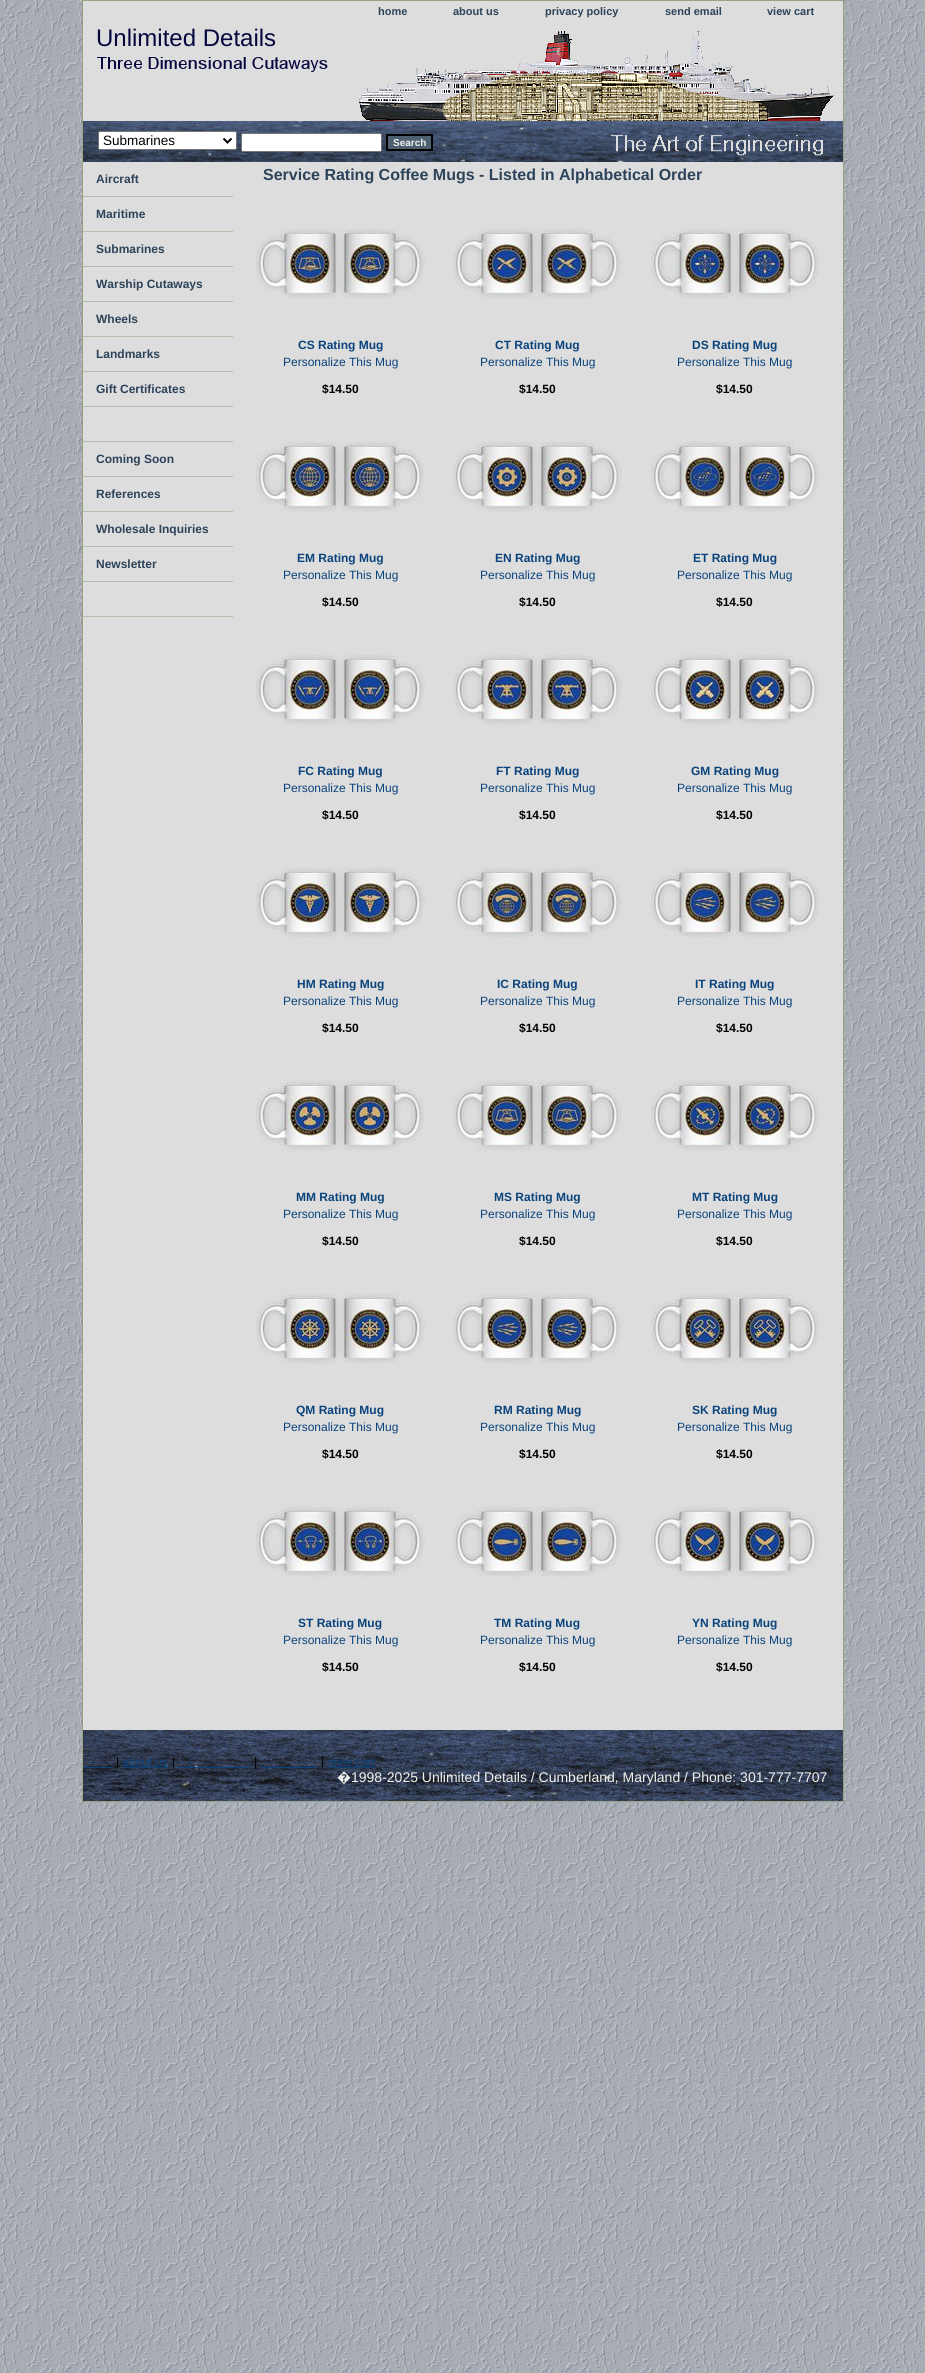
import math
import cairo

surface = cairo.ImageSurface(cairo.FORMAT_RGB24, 925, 2373)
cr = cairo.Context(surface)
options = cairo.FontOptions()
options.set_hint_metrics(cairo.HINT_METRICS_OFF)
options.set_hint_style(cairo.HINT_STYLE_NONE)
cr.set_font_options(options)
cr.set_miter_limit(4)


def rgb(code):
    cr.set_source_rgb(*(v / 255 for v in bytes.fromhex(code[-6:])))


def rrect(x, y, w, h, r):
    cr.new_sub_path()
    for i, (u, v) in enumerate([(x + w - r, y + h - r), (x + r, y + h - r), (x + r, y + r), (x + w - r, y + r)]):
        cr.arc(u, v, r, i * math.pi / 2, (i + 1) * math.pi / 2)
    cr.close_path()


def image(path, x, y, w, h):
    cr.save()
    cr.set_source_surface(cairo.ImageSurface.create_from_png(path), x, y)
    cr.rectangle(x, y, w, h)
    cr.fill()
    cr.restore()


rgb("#ffffff")
cr.paint()
image("img/1.png", 0, 0, 925, 2373)
rgb("#dddddd")
cr.rectangle(83, 1, 760, 1729)
cr.fill()
cr.rectangle(82.5, 0.5, 761, 1801)
rgb("#98a280")
cr.set_line_width(1)
cr.stroke()
image("img/2.png", 91, 11, 744, 110)
rgb("#dddddd")
cr.rectangle(693, 11, 6, 4)
cr.fill()
image("img/3.png", 83, 121, 760, 41)
rgb("#ffffff")
rrect(98.5, 131.5, 138, 18, 1.5)
cr.fill_preserve()
rgb("#767676")
cr.stroke()
cr.new_path()
cr.move_to(223.5, 138.5)
cr.line_to(227.5, 142.5)
cr.line_to(231.5, 138.5)
rgb("#000000")
cr.set_line_width(2)
cr.stroke()
rgb("#ffffff")
rrect(241.5, 133.5, 140, 18, 1.5)
cr.fill_preserve()
rgb("#767676")
cr.set_line_width(1)
cr.stroke()
rgb("#4e6070")
cr.rectangle(387, 135, 45, 15)
cr.fill_preserve()
rgb("#000000")
cr.set_line_width(2)
cr.stroke()
for x, y, w, h, color in [
    (83, 196, 150, 1, "#b4bbab"),
    (83, 231, 150, 1, "#b4bbab"),
    (83, 266, 150, 1, "#b4bbab"),
    (83, 301, 150, 1, "#b4bbab"),
    (83, 336, 150, 1, "#b4bbab"),
    (83, 371, 150, 1, "#b4bbab"),
    (83, 406, 150, 1, "#b4bbab"),
    (83, 441, 150, 1, "#b4bbab"),
    (83, 476, 150, 1, "#b4bbab"),
    (83, 511, 150, 1, "#b4bbab"),
    (83, 546, 150, 1, "#b4bbab"),
    (83, 581, 150, 1, "#b4bbab"),
    (83, 616, 150, 1, "#b4bbab"),
]:
    rgb(color)
    cr.rectangle(x, y, w, h)
    cr.fill()
image("img/4.png", 256, 228, 169, 71)
image("img/5.png", 453, 228, 169, 71)
image("img/6.png", 651, 228, 169, 71)
image("img/7.png", 256, 441, 169, 71)
image("img/8.png", 453, 441, 169, 71)
image("img/9.png", 651, 441, 169, 71)
image("img/10.png", 256, 654, 169, 71)
image("img/11.png", 453, 654, 169, 71)
image("img/12.png", 651, 654, 169, 71)
image("img/13.png", 256, 867, 169, 71)
image("img/14.png", 453, 867, 169, 71)
image("img/15.png", 651, 867, 169, 71)
image("img/16.png", 256, 1080, 169, 71)
image("img/17.png", 453, 1080, 169, 71)
image("img/18.png", 651, 1080, 169, 71)
image("img/19.png", 256, 1293, 169, 71)
image("img/20.png", 453, 1293, 169, 71)
image("img/21.png", 651, 1293, 169, 71)
image("img/22.png", 256, 1506, 169, 71)
image("img/23.png", 453, 1506, 169, 71)
image("img/24.png", 651, 1506, 169, 71)
image("img/25.png", 83, 1730, 760, 71)
for x, y, w, h, color in [
    (122, 1767, 46, 1, "#0a437c"),
    (178, 1767, 72, 1, "#0a437c"),
    (328, 1767, 47, 1, "#0a437c"),
    (83, 1767, 30, 1, "#0a437c"),
    (260, 1767, 58, 1, "#0a437c"),
]:
    rgb(color)
    cr.rectangle(x, y, w, h)
    cr.fill()
cr.select_font_face("Liberation Sans", cairo.FONT_SLANT_NORMAL, cairo.FONT_WEIGHT_BOLD)
cr.set_font_size(11)
rgb("#2c435a")
for x, y, s in [
    (378, 15, "home"),
    (453, 15, "about us"),
    (545, 15, "privacy policy"),
    (665, 15, "send email"),
    (767, 15, "view cart"),
]:
    cr.move_to(x, y)
    cr.show_text(s)
cr.select_font_face("Liberation Sans")
cr.set_font_size(24)
rgb("#06073f")
cr.move_to(96, 46)
cr.show_text("Unlimited Details")
cr.set_font_size(13.5)
rgb("#000000")
cr.move_to(103, 145)
cr.show_text("Submarines")
cr.select_font_face("Liberation Sans", cairo.FONT_SLANT_NORMAL, cairo.FONT_WEIGHT_BOLD)
cr.set_font_size(10)
rgb("#f1f2ed")
cr.move_to(393, 146)
cr.show_text("Search")
cr.set_font_size(12)
rgb("#2c435a")
for x, y, s in [
    (96, 183, "Aircraft"),
    (96, 218, "Maritime"),
    (96, 253, "Submarines"),
    (96, 288, "Warship Cutaways"),
    (96, 323, "Wheels"),
    (96, 358, "Landmarks"),
    (96, 393, "Gift Certificates"),
    (96, 463, "Coming Soon"),
    (96, 498, "References"),
    (96, 533, "Wholesale Inquiries"),
    (96, 568, "Newsletter"),
]:
    cr.move_to(x, y)
    cr.show_text(s)
cr.set_font_size(16)
cr.move_to(263, 180)
cr.show_text("Service Rating Coffee Mugs - Listed in Alphabetical Order")
cr.set_font_size(12)
rgb("#0a437c")
cr.move_to(298, 349)
cr.show_text("CS Rating Mug")
cr.select_font_face("Liberation Sans")
cr.move_to(283, 366)
cr.show_text("Personalize This Mug")
cr.select_font_face("Liberation Sans", cairo.FONT_SLANT_NORMAL, cairo.FONT_WEIGHT_BOLD)
rgb("#000000")
cr.move_to(322, 393)
cr.show_text("$14.50")
rgb("#0a437c")
cr.move_to(495, 349)
cr.show_text("CT Rating Mug")
cr.select_font_face("Liberation Sans")
cr.move_to(480, 366)
cr.show_text("Personalize This Mug")
cr.select_font_face("Liberation Sans", cairo.FONT_SLANT_NORMAL, cairo.FONT_WEIGHT_BOLD)
rgb("#000000")
cr.move_to(519, 393)
cr.show_text("$14.50")
rgb("#0a437c")
cr.move_to(692, 349)
cr.show_text("DS Rating Mug")
cr.select_font_face("Liberation Sans")
cr.move_to(677, 366)
cr.show_text("Personalize This Mug")
cr.select_font_face("Liberation Sans", cairo.FONT_SLANT_NORMAL, cairo.FONT_WEIGHT_BOLD)
rgb("#000000")
cr.move_to(716, 393)
cr.show_text("$14.50")
rgb("#0a437c")
cr.move_to(297, 562)
cr.show_text("EM Rating Mug")
cr.select_font_face("Liberation Sans")
cr.move_to(283, 579)
cr.show_text("Personalize This Mug")
cr.select_font_face("Liberation Sans", cairo.FONT_SLANT_NORMAL, cairo.FONT_WEIGHT_BOLD)
rgb("#000000")
cr.move_to(322, 606)
cr.show_text("$14.50")
rgb("#0a437c")
cr.move_to(495, 562)
cr.show_text("EN Rating Mug")
cr.select_font_face("Liberation Sans")
cr.move_to(480, 579)
cr.show_text("Personalize This Mug")
cr.select_font_face("Liberation Sans", cairo.FONT_SLANT_NORMAL, cairo.FONT_WEIGHT_BOLD)
rgb("#000000")
cr.move_to(519, 606)
cr.show_text("$14.50")
rgb("#0a437c")
cr.move_to(693, 562)
cr.show_text("ET Rating Mug")
cr.select_font_face("Liberation Sans")
cr.move_to(677, 579)
cr.show_text("Personalize This Mug")
cr.select_font_face("Liberation Sans", cairo.FONT_SLANT_NORMAL, cairo.FONT_WEIGHT_BOLD)
rgb("#000000")
cr.move_to(716, 606)
cr.show_text("$14.50")
rgb("#0a437c")
cr.move_to(298, 775)
cr.show_text("FC Rating Mug")
cr.select_font_face("Liberation Sans")
cr.move_to(283, 792)
cr.show_text("Personalize This Mug")
cr.select_font_face("Liberation Sans", cairo.FONT_SLANT_NORMAL, cairo.FONT_WEIGHT_BOLD)
rgb("#000000")
cr.move_to(322, 819)
cr.show_text("$14.50")
rgb("#0a437c")
cr.move_to(496, 775)
cr.show_text("FT Rating Mug")
cr.select_font_face("Liberation Sans")
cr.move_to(480, 792)
cr.show_text("Personalize This Mug")
cr.select_font_face("Liberation Sans", cairo.FONT_SLANT_NORMAL, cairo.FONT_WEIGHT_BOLD)
rgb("#000000")
cr.move_to(519, 819)
cr.show_text("$14.50")
rgb("#0a437c")
cr.move_to(691, 775)
cr.show_text("GM Rating Mug")
cr.select_font_face("Liberation Sans")
cr.move_to(677, 792)
cr.show_text("Personalize This Mug")
cr.select_font_face("Liberation Sans", cairo.FONT_SLANT_NORMAL, cairo.FONT_WEIGHT_BOLD)
rgb("#000000")
cr.move_to(716, 819)
cr.show_text("$14.50")
rgb("#0a437c")
cr.move_to(297, 988)
cr.show_text("HM Rating Mug")
cr.select_font_face("Liberation Sans")
cr.move_to(283, 1005)
cr.show_text("Personalize This Mug")
cr.select_font_face("Liberation Sans", cairo.FONT_SLANT_NORMAL, cairo.FONT_WEIGHT_BOLD)
rgb("#000000")
cr.move_to(322, 1032)
cr.show_text("$14.50")
rgb("#0a437c")
cr.move_to(497, 988)
cr.show_text("IC Rating Mug")
cr.select_font_face("Liberation Sans")
cr.move_to(480, 1005)
cr.show_text("Personalize This Mug")
cr.select_font_face("Liberation Sans", cairo.FONT_SLANT_NORMAL, cairo.FONT_WEIGHT_BOLD)
rgb("#000000")
cr.move_to(519, 1032)
cr.show_text("$14.50")
rgb("#0a437c")
cr.move_to(695, 988)
cr.show_text("IT Rating Mug")
cr.select_font_face("Liberation Sans")
cr.move_to(677, 1005)
cr.show_text("Personalize This Mug")
cr.select_font_face("Liberation Sans", cairo.FONT_SLANT_NORMAL, cairo.FONT_WEIGHT_BOLD)
rgb("#000000")
cr.move_to(716, 1032)
cr.show_text("$14.50")
rgb("#0a437c")
cr.move_to(296, 1201)
cr.show_text("MM Rating Mug")
cr.select_font_face("Liberation Sans")
cr.move_to(283, 1218)
cr.show_text("Personalize This Mug")
cr.select_font_face("Liberation Sans", cairo.FONT_SLANT_NORMAL, cairo.FONT_WEIGHT_BOLD)
rgb("#000000")
cr.move_to(322, 1245)
cr.show_text("$14.50")
rgb("#0a437c")
cr.move_to(494, 1201)
cr.show_text("MS Rating Mug")
cr.select_font_face("Liberation Sans")
cr.move_to(480, 1218)
cr.show_text("Personalize This Mug")
cr.select_font_face("Liberation Sans", cairo.FONT_SLANT_NORMAL, cairo.FONT_WEIGHT_BOLD)
rgb("#000000")
cr.move_to(519, 1245)
cr.show_text("$14.50")
rgb("#0a437c")
cr.move_to(692, 1201)
cr.show_text("MT Rating Mug")
cr.select_font_face("Liberation Sans")
cr.move_to(677, 1218)
cr.show_text("Personalize This Mug")
cr.select_font_face("Liberation Sans", cairo.FONT_SLANT_NORMAL, cairo.FONT_WEIGHT_BOLD)
rgb("#000000")
cr.move_to(716, 1245)
cr.show_text("$14.50")
rgb("#0a437c")
cr.move_to(296, 1414)
cr.show_text("QM Rating Mug")
cr.select_font_face("Liberation Sans")
cr.move_to(283, 1431)
cr.show_text("Personalize This Mug")
cr.select_font_face("Liberation Sans", cairo.FONT_SLANT_NORMAL, cairo.FONT_WEIGHT_BOLD)
rgb("#000000")
cr.move_to(322, 1458)
cr.show_text("$14.50")
rgb("#0a437c")
cr.move_to(494, 1414)
cr.show_text("RM Rating Mug")
cr.select_font_face("Liberation Sans")
cr.move_to(480, 1431)
cr.show_text("Personalize This Mug")
cr.select_font_face("Liberation Sans", cairo.FONT_SLANT_NORMAL, cairo.FONT_WEIGHT_BOLD)
rgb("#000000")
cr.move_to(519, 1458)
cr.show_text("$14.50")
rgb("#0a437c")
cr.move_to(692, 1414)
cr.show_text("SK Rating Mug")
cr.select_font_face("Liberation Sans")
cr.move_to(677, 1431)
cr.show_text("Personalize This Mug")
cr.select_font_face("Liberation Sans", cairo.FONT_SLANT_NORMAL, cairo.FONT_WEIGHT_BOLD)
rgb("#000000")
cr.move_to(716, 1458)
cr.show_text("$14.50")
rgb("#0a437c")
cr.move_to(298, 1627)
cr.show_text("ST Rating Mug")
cr.select_font_face("Liberation Sans")
cr.move_to(283, 1644)
cr.show_text("Personalize This Mug")
cr.select_font_face("Liberation Sans", cairo.FONT_SLANT_NORMAL, cairo.FONT_WEIGHT_BOLD)
rgb("#000000")
cr.move_to(322, 1671)
cr.show_text("$14.50")
rgb("#0a437c")
cr.move_to(494, 1627)
cr.show_text("TM Rating Mug")
cr.select_font_face("Liberation Sans")
cr.move_to(480, 1644)
cr.show_text("Personalize This Mug")
cr.select_font_face("Liberation Sans", cairo.FONT_SLANT_NORMAL, cairo.FONT_WEIGHT_BOLD)
rgb("#000000")
cr.move_to(519, 1671)
cr.show_text("$14.50")
rgb("#0a437c")
cr.move_to(692, 1627)
cr.show_text("YN Rating Mug")
cr.select_font_face("Liberation Sans")
cr.move_to(677, 1644)
cr.show_text("Personalize This Mug")
cr.select_font_face("Liberation Sans", cairo.FONT_SLANT_NORMAL, cairo.FONT_WEIGHT_BOLD)
rgb("#000000")
cr.move_to(716, 1671)
cr.show_text("$14.50")
cr.select_font_face("Liberation Sans")
cr.move_to(116, 1766)
cr.show_text("|")
rgb("#0a437c")
cr.move_to(122, 1766)
cr.show_text("about us")
rgb("#000000")
cr.move_to(172, 1766)
cr.show_text("|")
rgb("#0a437c")
cr.move_to(189, 1766)
cr.show_text("i")
rgb("#000000")
cr.move_to(254, 1766)
cr.show_text("|")
cr.move_to(321, 1766)
cr.show_text("|")
rgb("#0a437c")
cr.move_to(328, 1766)
cr.show_text("view cart")
cr.select_font_face("Noto Sans")
cr.set_font_size(14)
rgb("#f1f2ed")
cr.move_to(337, 1782)
cr.show_text("�")
cr.select_font_face("Liberation Sans")
cr.move_to(351, 1782)
cr.show_text("1998-2025 Unlimited Details / Cumberland, Maryland / Phone: 301-777-7707")
surface.write_to_png("page.png")
